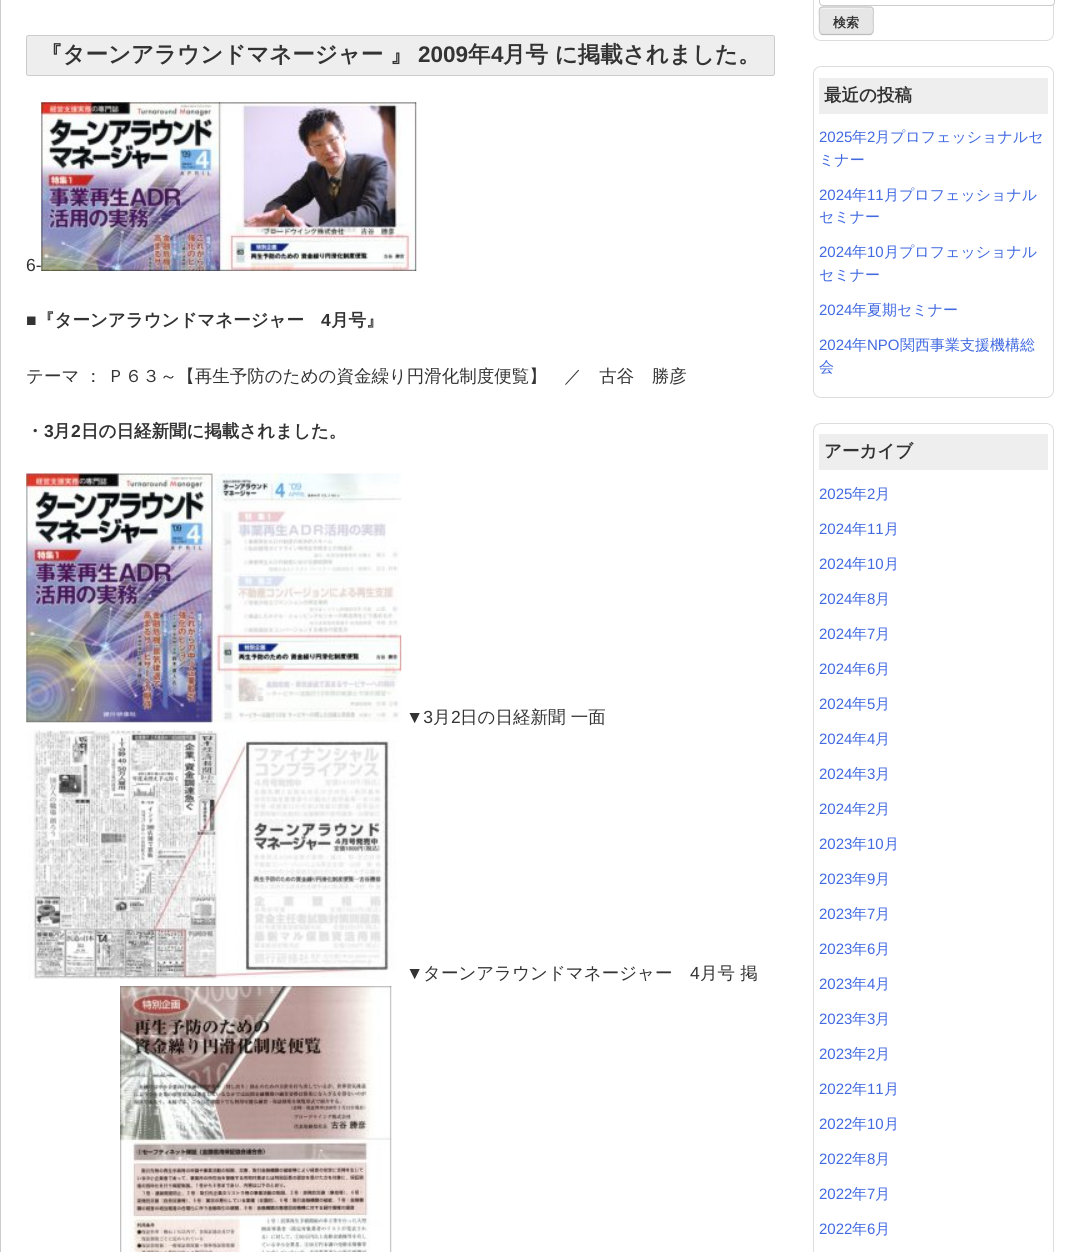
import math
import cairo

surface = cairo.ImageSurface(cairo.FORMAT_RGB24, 1067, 1252)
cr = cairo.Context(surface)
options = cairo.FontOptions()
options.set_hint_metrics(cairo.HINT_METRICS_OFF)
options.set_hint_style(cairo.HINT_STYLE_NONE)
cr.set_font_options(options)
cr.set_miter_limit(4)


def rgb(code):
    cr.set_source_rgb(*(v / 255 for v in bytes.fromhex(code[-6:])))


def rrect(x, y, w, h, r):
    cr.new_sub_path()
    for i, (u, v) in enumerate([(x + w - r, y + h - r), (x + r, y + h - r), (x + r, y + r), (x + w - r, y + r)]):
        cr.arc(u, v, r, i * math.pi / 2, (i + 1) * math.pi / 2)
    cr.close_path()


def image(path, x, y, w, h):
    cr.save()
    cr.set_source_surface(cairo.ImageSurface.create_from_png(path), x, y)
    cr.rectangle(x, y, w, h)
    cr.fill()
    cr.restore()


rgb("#ffffff")
cr.paint()
cr.rectangle(0.5, -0.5, 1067, 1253)
rgb("#cccccc")
cr.set_line_width(1)
cr.stroke()
rgb("#eeeeee")
rrect(26.5, 35.5, 748, 40, 2)
cr.fill_preserve()
rgb("#cccccc")
cr.stroke()
image("img/2.png", 26, 473, 376, 250)
image("img/3.png", 28, 729, 368, 250)
image("img/4.png", 120, 986, 272, 266)
rrect(813.5, -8.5, 240, 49, 7.5)
rgb("#dddddd")
cr.stroke()
rgb("#ffffff")
rrect(819.5, -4.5, 235, 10, 3.5)
cr.fill_preserve()
rgb("#cccccc")
cr.stroke()
rgb("#e6e6e6")
rrect(819, 6, 55, 29, 4)
cr.fill()
rgb("#f3f3f3")
cr.new_path()
cr.move_to(822, 9)
cr.line_to(854, 9)
cr.curve_to(874, 9, 872, 4, 872, 22)
cr.line_to(872, 34)
cr.curve_to(874, 32, 873, 27, 873, 24)
cr.line_to(873, 14)
cr.curve_to(873, 6, 871, 8, 862, 8)
cr.line_to(822, 8)
cr.line_to(820, 10)
cr.line_to(820, 11)
cr.curve_to(820, 10, 821, 9, 822, 9)
cr.close_path()
cr.fill()
cr.new_path()
cr.move_to(872, 33.5)
cr.line_to(870.5, 34.5)
cr.line_to(822, 34.5)
cr.line_to(820.5, 33.5)
rgb("#bbbbbb")
cr.set_line_width(1.2)
cr.stroke()
cr.new_path()
cr.move_to(820.5, 33.5)
cr.curve_to(818.5, 31.5, 819.5, 23, 819.5, 20.5)
cr.curve_to(819.5, 6.5, 816.5, 7, 830.5, 7)
cr.line_to(862, 7)
cr.curve_to(876, 7, 873, 6.5, 873, 20.5)
cr.curve_to(873, 23, 874, 31.5, 872, 33.5)
rgb("#cccccc")
cr.stroke()
rrect(813.5, 66.5, 240, 331, 7.5)
rgb("#dddddd")
cr.set_line_width(1)
cr.stroke()
rgb("#eeeeee")
cr.rectangle(819, 78, 229, 36)
cr.fill()
rrect(813.5, 423.5, 240, 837, 7.5)
rgb("#dddddd")
cr.stroke()
rgb("#eeeeee")
cr.rectangle(819, 434, 229, 36)
cr.fill()
cr.select_font_face("WenQuanYi Zen Hei", cairo.FONT_SLANT_NORMAL, cairo.FONT_WEIGHT_BOLD)
cr.set_font_size(22.5)
rgb("#333333")
cr.move_to(40, 62)
cr.show_text("『ターンアラウンドマネージャー 』")
cr.select_font_face("Liberation Sans", cairo.FONT_SLANT_NORMAL, cairo.FONT_WEIGHT_BOLD)
cr.move_to(418, 62)
cr.show_text("2009")
cr.select_font_face("WenQuanYi Zen Hei", cairo.FONT_SLANT_NORMAL, cairo.FONT_WEIGHT_BOLD)
cr.move_to(468, 62)
cr.show_text("年")
cr.select_font_face("Liberation Sans", cairo.FONT_SLANT_NORMAL, cairo.FONT_WEIGHT_BOLD)
cr.move_to(491, 62)
cr.show_text("4")
cr.select_font_face("WenQuanYi Zen Hei", cairo.FONT_SLANT_NORMAL, cairo.FONT_WEIGHT_BOLD)
cr.move_to(503, 62)
cr.show_text("月号 に掲載されました。")
cr.select_font_face("Liberation Sans")
cr.set_font_size(17.5)
cr.move_to(26, 271)
cr.show_text("6-")
image("img/1.png", 41, 102, 376, 169)
cr.select_font_face("Liberation Sans", cairo.FONT_SLANT_NORMAL, cairo.FONT_WEIGHT_BOLD)
cr.move_to(26, 326)
cr.show_text("■")
cr.select_font_face("WenQuanYi Zen Hei", cairo.FONT_SLANT_NORMAL, cairo.FONT_WEIGHT_BOLD)
cr.move_to(37, 326)
cr.show_text("『ターンアラウンドマネージャー")
cr.select_font_face("Liberation Sans", cairo.FONT_SLANT_NORMAL, cairo.FONT_WEIGHT_BOLD)
cr.move_to(321, 326)
cr.show_text("4")
cr.select_font_face("WenQuanYi Zen Hei", cairo.FONT_SLANT_NORMAL, cairo.FONT_WEIGHT_BOLD)
cr.move_to(331, 326)
cr.show_text("月号』")
cr.select_font_face("WenQuanYi Zen Hei Medium")
cr.move_to(26, 382)
cr.show_text("テーマ ： Ｐ６３～【再生予防のための資金繰り円滑化制度便覧】　／　古谷　勝彦")
cr.select_font_face("WenQuanYi Zen Hei", cairo.FONT_SLANT_NORMAL, cairo.FONT_WEIGHT_BOLD)
cr.move_to(26, 437)
cr.show_text("・")
cr.select_font_face("Liberation Sans", cairo.FONT_SLANT_NORMAL, cairo.FONT_WEIGHT_BOLD)
cr.move_to(44, 437)
cr.show_text("3")
cr.select_font_face("WenQuanYi Zen Hei", cairo.FONT_SLANT_NORMAL, cairo.FONT_WEIGHT_BOLD)
cr.move_to(53, 437)
cr.show_text("月")
cr.select_font_face("Liberation Sans", cairo.FONT_SLANT_NORMAL, cairo.FONT_WEIGHT_BOLD)
cr.move_to(71, 437)
cr.show_text("2")
cr.select_font_face("WenQuanYi Zen Hei", cairo.FONT_SLANT_NORMAL, cairo.FONT_WEIGHT_BOLD)
cr.move_to(81, 437)
cr.show_text("日の日経新聞に掲載されました。")
cr.select_font_face("Liberation Sans")
cr.move_to(406, 723)
cr.show_text("▼3")
cr.select_font_face("WenQuanYi Zen Hei Medium")
cr.move_to(433, 723)
cr.show_text("月")
cr.select_font_face("Liberation Sans")
cr.move_to(451, 723)
cr.show_text("2")
cr.select_font_face("WenQuanYi Zen Hei Medium")
cr.move_to(460, 723)
cr.show_text("日の日経新聞 一面")
cr.select_font_face("Liberation Sans")
cr.move_to(406, 979)
cr.show_text("▼")
cr.select_font_face("WenQuanYi Zen Hei Medium")
cr.move_to(423, 979)
cr.show_text("ターンアラウンドマネージャー")
cr.select_font_face("Liberation Sans")
cr.move_to(690, 979)
cr.show_text("4")
cr.select_font_face("WenQuanYi Zen Hei Medium")
cr.move_to(700, 979)
cr.show_text("月号 掲")
cr.select_font_face("WenQuanYi Zen Hei", cairo.FONT_SLANT_NORMAL, cairo.FONT_WEIGHT_BOLD)
cr.set_font_size(13)
cr.move_to(833, 27)
cr.show_text("検索")
cr.set_font_size(17.5)
cr.move_to(824, 101)
cr.show_text("最近の投稿")
cr.select_font_face("Liberation Sans")
cr.set_font_size(15)
rgb("#4169e1")
cr.move_to(819, 142)
cr.show_text("2025")
cr.select_font_face("WenQuanYi Zen Hei Medium")
cr.move_to(852, 142)
cr.show_text("年")
cr.select_font_face("Liberation Sans")
cr.move_to(867, 142)
cr.show_text("2")
cr.select_font_face("WenQuanYi Zen Hei Medium")
cr.move_to(875, 142)
cr.show_text("月プロフェッショナルセ")
cr.move_to(819, 165)
cr.show_text("ミナー")
cr.select_font_face("Liberation Sans")
cr.move_to(819, 200)
cr.show_text("2024")
cr.select_font_face("WenQuanYi Zen Hei Medium")
cr.move_to(852, 200)
cr.show_text("年")
cr.select_font_face("Liberation Sans")
cr.move_to(867, 200)
cr.show_text("11")
cr.select_font_face("WenQuanYi Zen Hei Medium")
cr.move_to(884, 200)
cr.show_text("月プロフェッショナル")
cr.move_to(819, 222)
cr.show_text("セミナー")
cr.select_font_face("Liberation Sans")
cr.move_to(819, 257)
cr.show_text("2024")
cr.select_font_face("WenQuanYi Zen Hei Medium")
cr.move_to(852, 257)
cr.show_text("年")
cr.select_font_face("Liberation Sans")
cr.move_to(867, 257)
cr.show_text("10")
cr.select_font_face("WenQuanYi Zen Hei Medium")
cr.move_to(884, 257)
cr.show_text("月プロフェッショナル")
cr.move_to(819, 280)
cr.show_text("セミナー")
cr.select_font_face("Liberation Sans")
cr.move_to(819, 315)
cr.show_text("2024")
cr.select_font_face("WenQuanYi Zen Hei Medium")
cr.move_to(852, 315)
cr.show_text("年夏期セミナー")
cr.select_font_face("Liberation Sans")
cr.move_to(819, 350)
cr.show_text("2024")
cr.select_font_face("WenQuanYi Zen Hei Medium")
cr.move_to(852, 350)
cr.show_text("年")
cr.select_font_face("Liberation Sans")
cr.move_to(867, 350)
cr.show_text("NPO")
cr.select_font_face("WenQuanYi Zen Hei Medium")
cr.move_to(900, 350)
cr.show_text("関西事業支援機構総")
cr.move_to(819, 372)
cr.show_text("会")
cr.select_font_face("WenQuanYi Zen Hei", cairo.FONT_SLANT_NORMAL, cairo.FONT_WEIGHT_BOLD)
cr.set_font_size(17.5)
rgb("#333333")
cr.move_to(824, 457)
cr.show_text("アーカイブ")
cr.select_font_face("Liberation Sans")
cr.set_font_size(15)
rgb("#4169e1")
cr.move_to(819, 499)
cr.show_text("2025")
cr.select_font_face("WenQuanYi Zen Hei Medium")
cr.move_to(852, 499)
cr.show_text("年")
cr.select_font_face("Liberation Sans")
cr.move_to(867, 499)
cr.show_text("2")
cr.select_font_face("WenQuanYi Zen Hei Medium")
cr.move_to(875, 499)
cr.show_text("月")
cr.select_font_face("Liberation Sans")
cr.move_to(819, 534)
cr.show_text("2024")
cr.select_font_face("WenQuanYi Zen Hei Medium")
cr.move_to(852, 534)
cr.show_text("年")
cr.select_font_face("Liberation Sans")
cr.move_to(867, 534)
cr.show_text("11")
cr.select_font_face("WenQuanYi Zen Hei Medium")
cr.move_to(884, 534)
cr.show_text("月")
cr.select_font_face("Liberation Sans")
cr.move_to(819, 569)
cr.show_text("2024")
cr.select_font_face("WenQuanYi Zen Hei Medium")
cr.move_to(852, 569)
cr.show_text("年")
cr.select_font_face("Liberation Sans")
cr.move_to(867, 569)
cr.show_text("10")
cr.select_font_face("WenQuanYi Zen Hei Medium")
cr.move_to(884, 569)
cr.show_text("月")
cr.select_font_face("Liberation Sans")
cr.move_to(819, 604)
cr.show_text("2024")
cr.select_font_face("WenQuanYi Zen Hei Medium")
cr.move_to(852, 604)
cr.show_text("年")
cr.select_font_face("Liberation Sans")
cr.move_to(867, 604)
cr.show_text("8")
cr.select_font_face("WenQuanYi Zen Hei Medium")
cr.move_to(875, 604)
cr.show_text("月")
cr.select_font_face("Liberation Sans")
cr.move_to(819, 639)
cr.show_text("2024")
cr.select_font_face("WenQuanYi Zen Hei Medium")
cr.move_to(852, 639)
cr.show_text("年")
cr.select_font_face("Liberation Sans")
cr.move_to(867, 639)
cr.show_text("7")
cr.select_font_face("WenQuanYi Zen Hei Medium")
cr.move_to(875, 639)
cr.show_text("月")
cr.select_font_face("Liberation Sans")
cr.move_to(819, 674)
cr.show_text("2024")
cr.select_font_face("WenQuanYi Zen Hei Medium")
cr.move_to(852, 674)
cr.show_text("年")
cr.select_font_face("Liberation Sans")
cr.move_to(867, 674)
cr.show_text("6")
cr.select_font_face("WenQuanYi Zen Hei Medium")
cr.move_to(875, 674)
cr.show_text("月")
cr.select_font_face("Liberation Sans")
cr.move_to(819, 709)
cr.show_text("2024")
cr.select_font_face("WenQuanYi Zen Hei Medium")
cr.move_to(852, 709)
cr.show_text("年")
cr.select_font_face("Liberation Sans")
cr.move_to(867, 709)
cr.show_text("5")
cr.select_font_face("WenQuanYi Zen Hei Medium")
cr.move_to(875, 709)
cr.show_text("月")
cr.select_font_face("Liberation Sans")
cr.move_to(819, 744)
cr.show_text("2024")
cr.select_font_face("WenQuanYi Zen Hei Medium")
cr.move_to(852, 744)
cr.show_text("年")
cr.select_font_face("Liberation Sans")
cr.move_to(867, 744)
cr.show_text("4")
cr.select_font_face("WenQuanYi Zen Hei Medium")
cr.move_to(875, 744)
cr.show_text("月")
cr.select_font_face("Liberation Sans")
cr.move_to(819, 779)
cr.show_text("2024")
cr.select_font_face("WenQuanYi Zen Hei Medium")
cr.move_to(852, 779)
cr.show_text("年")
cr.select_font_face("Liberation Sans")
cr.move_to(867, 779)
cr.show_text("3")
cr.select_font_face("WenQuanYi Zen Hei Medium")
cr.move_to(875, 779)
cr.show_text("月")
cr.select_font_face("Liberation Sans")
cr.move_to(819, 814)
cr.show_text("2024")
cr.select_font_face("WenQuanYi Zen Hei Medium")
cr.move_to(852, 814)
cr.show_text("年")
cr.select_font_face("Liberation Sans")
cr.move_to(867, 814)
cr.show_text("2")
cr.select_font_face("WenQuanYi Zen Hei Medium")
cr.move_to(875, 814)
cr.show_text("月")
cr.select_font_face("Liberation Sans")
cr.move_to(819, 849)
cr.show_text("2023")
cr.select_font_face("WenQuanYi Zen Hei Medium")
cr.move_to(852, 849)
cr.show_text("年")
cr.select_font_face("Liberation Sans")
cr.move_to(867, 849)
cr.show_text("10")
cr.select_font_face("WenQuanYi Zen Hei Medium")
cr.move_to(884, 849)
cr.show_text("月")
cr.select_font_face("Liberation Sans")
cr.move_to(819, 884)
cr.show_text("2023")
cr.select_font_face("WenQuanYi Zen Hei Medium")
cr.move_to(852, 884)
cr.show_text("年")
cr.select_font_face("Liberation Sans")
cr.move_to(867, 884)
cr.show_text("9")
cr.select_font_face("WenQuanYi Zen Hei Medium")
cr.move_to(875, 884)
cr.show_text("月")
cr.select_font_face("Liberation Sans")
cr.move_to(819, 919)
cr.show_text("2023")
cr.select_font_face("WenQuanYi Zen Hei Medium")
cr.move_to(852, 919)
cr.show_text("年")
cr.select_font_face("Liberation Sans")
cr.move_to(867, 919)
cr.show_text("7")
cr.select_font_face("WenQuanYi Zen Hei Medium")
cr.move_to(875, 919)
cr.show_text("月")
cr.select_font_face("Liberation Sans")
cr.move_to(819, 954)
cr.show_text("2023")
cr.select_font_face("WenQuanYi Zen Hei Medium")
cr.move_to(852, 954)
cr.show_text("年")
cr.select_font_face("Liberation Sans")
cr.move_to(867, 954)
cr.show_text("6")
cr.select_font_face("WenQuanYi Zen Hei Medium")
cr.move_to(875, 954)
cr.show_text("月")
cr.select_font_face("Liberation Sans")
cr.move_to(819, 989)
cr.show_text("2023")
cr.select_font_face("WenQuanYi Zen Hei Medium")
cr.move_to(852, 989)
cr.show_text("年")
cr.select_font_face("Liberation Sans")
cr.move_to(867, 989)
cr.show_text("4")
cr.select_font_face("WenQuanYi Zen Hei Medium")
cr.move_to(875, 989)
cr.show_text("月")
cr.select_font_face("Liberation Sans")
cr.move_to(819, 1024)
cr.show_text("2023")
cr.select_font_face("WenQuanYi Zen Hei Medium")
cr.move_to(852, 1024)
cr.show_text("年")
cr.select_font_face("Liberation Sans")
cr.move_to(867, 1024)
cr.show_text("3")
cr.select_font_face("WenQuanYi Zen Hei Medium")
cr.move_to(875, 1024)
cr.show_text("月")
cr.select_font_face("Liberation Sans")
cr.move_to(819, 1059)
cr.show_text("2023")
cr.select_font_face("WenQuanYi Zen Hei Medium")
cr.move_to(852, 1059)
cr.show_text("年")
cr.select_font_face("Liberation Sans")
cr.move_to(867, 1059)
cr.show_text("2")
cr.select_font_face("WenQuanYi Zen Hei Medium")
cr.move_to(875, 1059)
cr.show_text("月")
cr.select_font_face("Liberation Sans")
cr.move_to(819, 1094)
cr.show_text("2022")
cr.select_font_face("WenQuanYi Zen Hei Medium")
cr.move_to(852, 1094)
cr.show_text("年")
cr.select_font_face("Liberation Sans")
cr.move_to(867, 1094)
cr.show_text("11")
cr.select_font_face("WenQuanYi Zen Hei Medium")
cr.move_to(884, 1094)
cr.show_text("月")
cr.select_font_face("Liberation Sans")
cr.move_to(819, 1129)
cr.show_text("2022")
cr.select_font_face("WenQuanYi Zen Hei Medium")
cr.move_to(852, 1129)
cr.show_text("年")
cr.select_font_face("Liberation Sans")
cr.move_to(867, 1129)
cr.show_text("10")
cr.select_font_face("WenQuanYi Zen Hei Medium")
cr.move_to(884, 1129)
cr.show_text("月")
cr.select_font_face("Liberation Sans")
cr.move_to(819, 1164)
cr.show_text("2022")
cr.select_font_face("WenQuanYi Zen Hei Medium")
cr.move_to(852, 1164)
cr.show_text("年")
cr.select_font_face("Liberation Sans")
cr.move_to(867, 1164)
cr.show_text("8")
cr.select_font_face("WenQuanYi Zen Hei Medium")
cr.move_to(875, 1164)
cr.show_text("月")
cr.select_font_face("Liberation Sans")
cr.move_to(819, 1199)
cr.show_text("2022")
cr.select_font_face("WenQuanYi Zen Hei Medium")
cr.move_to(852, 1199)
cr.show_text("年")
cr.select_font_face("Liberation Sans")
cr.move_to(867, 1199)
cr.show_text("7")
cr.select_font_face("WenQuanYi Zen Hei Medium")
cr.move_to(875, 1199)
cr.show_text("月")
cr.select_font_face("Liberation Sans")
cr.move_to(819, 1234)
cr.show_text("2022")
cr.select_font_face("WenQuanYi Zen Hei Medium")
cr.move_to(852, 1234)
cr.show_text("年")
cr.select_font_face("Liberation Sans")
cr.move_to(867, 1234)
cr.show_text("6")
cr.select_font_face("WenQuanYi Zen Hei Medium")
cr.move_to(875, 1234)
cr.show_text("月")
surface.write_to_png("page.png")
